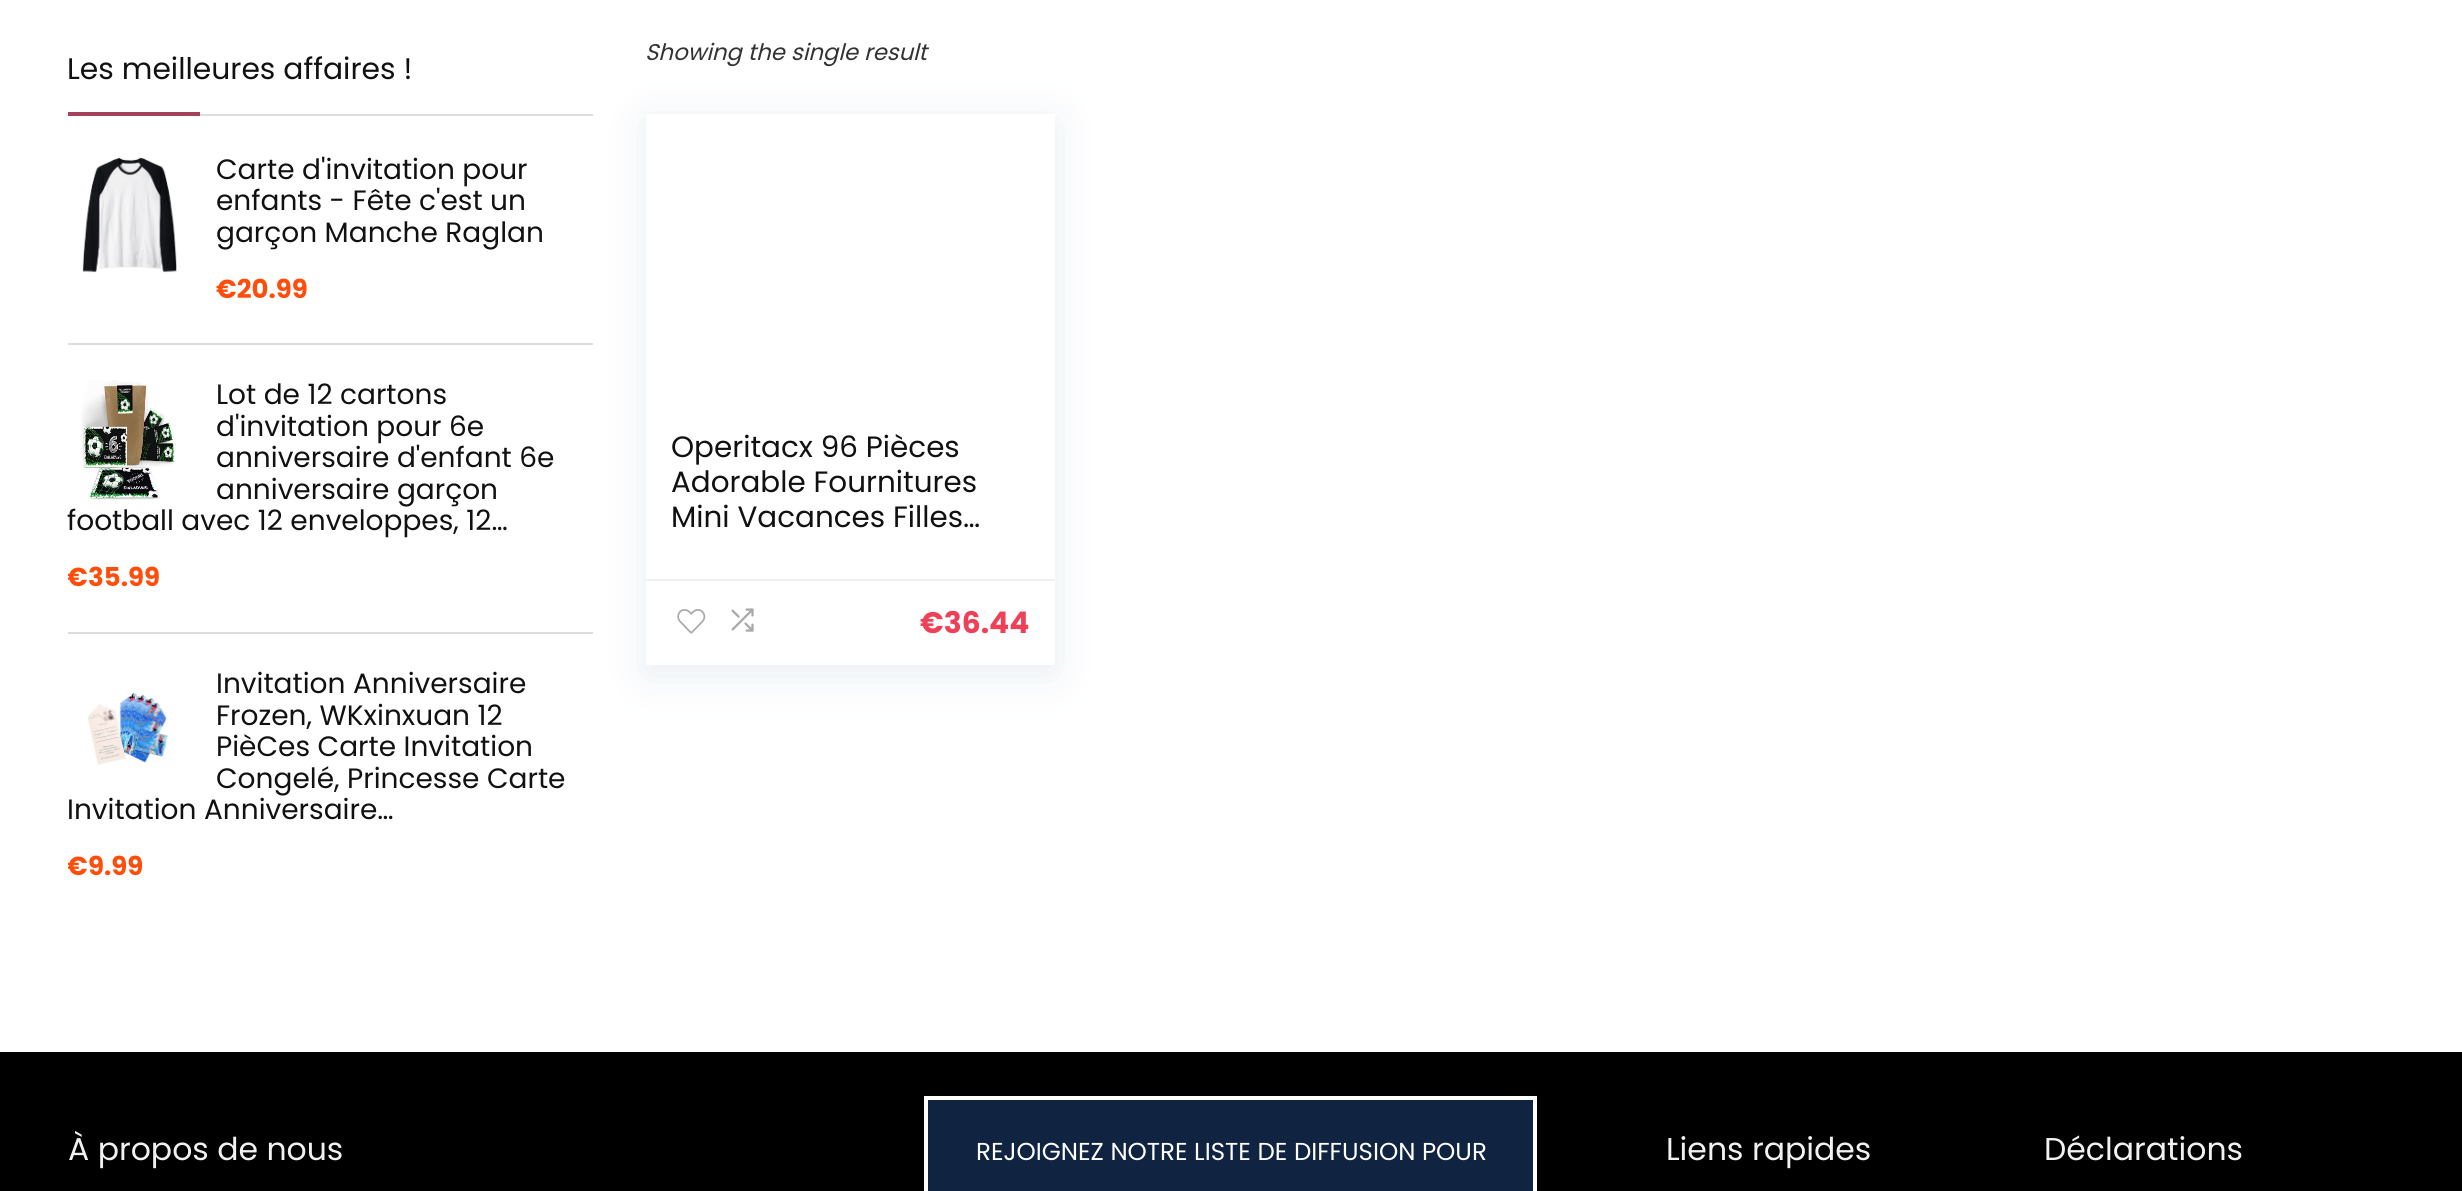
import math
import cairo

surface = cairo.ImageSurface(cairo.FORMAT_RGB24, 2462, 1191)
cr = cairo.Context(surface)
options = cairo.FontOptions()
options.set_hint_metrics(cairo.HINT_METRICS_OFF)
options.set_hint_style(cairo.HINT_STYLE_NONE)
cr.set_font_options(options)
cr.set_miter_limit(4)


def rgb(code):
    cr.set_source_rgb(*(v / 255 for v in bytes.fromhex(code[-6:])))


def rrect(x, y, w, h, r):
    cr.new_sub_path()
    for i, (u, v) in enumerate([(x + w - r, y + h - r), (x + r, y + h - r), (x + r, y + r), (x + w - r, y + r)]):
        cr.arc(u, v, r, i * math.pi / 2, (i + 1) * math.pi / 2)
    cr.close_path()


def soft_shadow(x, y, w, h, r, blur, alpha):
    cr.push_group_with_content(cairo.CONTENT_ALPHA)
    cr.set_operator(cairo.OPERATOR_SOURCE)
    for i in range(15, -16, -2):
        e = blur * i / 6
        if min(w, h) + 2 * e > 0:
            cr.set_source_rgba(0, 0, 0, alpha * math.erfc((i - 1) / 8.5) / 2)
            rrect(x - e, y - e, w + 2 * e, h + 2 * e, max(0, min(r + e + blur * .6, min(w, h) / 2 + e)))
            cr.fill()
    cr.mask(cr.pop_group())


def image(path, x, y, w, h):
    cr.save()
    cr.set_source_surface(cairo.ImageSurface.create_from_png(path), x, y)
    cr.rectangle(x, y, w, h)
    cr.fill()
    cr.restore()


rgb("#ffffff")
cr.paint()
for x, y, w, h, color in [
    (200, 114, 393, 2, "#dddddd"),
    (68, 112, 132, 4, "#a4425b"),
    (68, 343, 525, 2, "#dddddd"),
]:
    rgb(color)
    cr.rectangle(x, y, w, h)
    cr.fill()
image("img/1.png", 82, 157, 95, 116)
cr.rectangle(68, 632, 525, 2)
cr.fill()
image("img/2.png", 81, 380, 95, 120)
image("img/3.png", 87, 692, 83, 73)
cr.save()
cr.set_fill_rule(cairo.FILL_RULE_EVEN_ODD)
cr.new_path()
cr.move_to(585, 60)
cr.line_to(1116, 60)
cr.line_to(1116, 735)
cr.line_to(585, 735)
cr.close_path()
cr.move_to(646, 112)
cr.line_to(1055, 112)
cr.line_to(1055, 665)
cr.line_to(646, 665)
cr.close_path()
cr.clip()
rgb("#bccfdb")
soft_shadow(646, 121, 409, 553, 0, 20, 0.35)
cr.restore()
rgb("#f8f8f8")
cr.rectangle(646, 112, 409, 2)
cr.fill()
rgb("#f0f0f0")
cr.rectangle(646, 579, 409, 2)
cr.fill()
image("img/4.png", 677, 609, 29, 25)
image("img/5.png", 731, 608, 23, 24)
rgb("#000000")
cr.rectangle(0, 1052, 2462, 139)
cr.fill()
rgb("#102341")
cr.rectangle(926, 1098, 609, 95)
cr.fill_preserve()
rgb("#ffffff")
cr.set_line_width(4)
cr.stroke()
cr.select_font_face("Poppins")
cr.set_font_size(29.75)
rgb("#111111")
cr.move_to(67, 79)
cr.show_text("Les meilleures affaires !")
cr.set_font_size(28)
for x, y, s in [
    (216, 179, "Carte d'invitation pour"),
    (216, 210, "enfants - Fête c'est un"),
    (216, 242, "garçon Manche Raglan"),
]:
    cr.move_to(x, y)
    cr.show_text(s)
cr.select_font_face("Poppins", cairo.FONT_SLANT_NORMAL, cairo.FONT_WEIGHT_BOLD)
cr.set_font_size(26)
rgb("#ff4e0c")
cr.move_to(216, 298)
cr.show_text("€20.99")
cr.select_font_face("Poppins")
cr.set_font_size(28)
rgb("#111111")
for x, y, s in [
    (216, 404, "Lot de 12 cartons"),
    (216, 436, "d'invitation pour 6e"),
    (216, 467, "anniversaire d'enfant 6e"),
    (216, 499, "anniversaire garçon"),
    (67, 530, "football avec 12 enveloppes, 12…"),
]:
    cr.move_to(x, y)
    cr.show_text(s)
cr.save()
cr.rectangle(68, 49, 525, 907)
cr.clip()
cr.select_font_face("Poppins", cairo.FONT_SLANT_NORMAL, cairo.FONT_WEIGHT_BOLD)
cr.set_font_size(26)
rgb("#ff4e0c")
cr.move_to(67, 586)
cr.show_text("€")
cr.restore()
cr.select_font_face("Poppins", cairo.FONT_SLANT_NORMAL, cairo.FONT_WEIGHT_BOLD)
cr.set_font_size(26)
rgb("#ff4e0c")
cr.move_to(88, 586)
cr.show_text("35.99")
cr.select_font_face("Poppins")
cr.set_font_size(28)
rgb("#111111")
for x, y, s in [
    (216, 693, "Invitation Anniversaire"),
    (216, 725, "Frozen, WKxinxuan 12"),
    (216, 756, "PièCes Carte Invitation"),
    (216, 788, "Congelé, Princesse Carte"),
    (67, 819, "Invitation Anniversaire…"),
]:
    cr.move_to(x, y)
    cr.show_text(s)
cr.save()
cr.rectangle(68, 49, 525, 907)
cr.clip()
cr.select_font_face("Poppins", cairo.FONT_SLANT_NORMAL, cairo.FONT_WEIGHT_BOLD)
cr.set_font_size(26)
rgb("#ff4e0c")
cr.move_to(67, 875)
cr.show_text("€")
cr.restore()
cr.select_font_face("Poppins", cairo.FONT_SLANT_NORMAL, cairo.FONT_WEIGHT_BOLD)
cr.set_font_size(26)
rgb("#ff4e0c")
cr.move_to(88, 875)
cr.show_text("9.99")
cr.select_font_face("Poppins", cairo.FONT_SLANT_ITALIC)
cr.set_font_size(22.75)
rgb("#333333")
cr.move_to(645, 60)
cr.show_text("Showing the single result")
cr.select_font_face("Poppins")
cr.set_font_size(29.4)
rgb("#111111")
for x, y, s in [
    (671, 457, "Operitacx 96 Pièces"),
    (671, 492, "Adorable Fournitures"),
    (671, 527, "Mini Vacances Filles…"),
]:
    cr.move_to(x, y)
    cr.show_text(s)
cr.select_font_face("Poppins", cairo.FONT_SLANT_NORMAL, cairo.FONT_WEIGHT_BOLD)
cr.set_font_size(29.75)
rgb("#f04057")
cr.move_to(920, 633)
cr.show_text("€36.44")
cr.select_font_face("Poppins")
cr.set_font_size(31.5)
rgb("#f1f1f1")
cr.move_to(68, 1160)
cr.show_text("À propos de nous")
cr.set_font_size(24.5)
rgb("#ffffff")
cr.move_to(976, 1160)
cr.show_text("REJOIGNEZ NOTRE LISTE DE DIFFUSION POUR")
cr.set_font_size(31.5)
rgb("#f1f1f1")
cr.move_to(1666, 1160)
cr.show_text("Liens rapides")
cr.move_to(2044, 1160)
cr.show_text("Déclarations")
surface.write_to_png("page.png")
